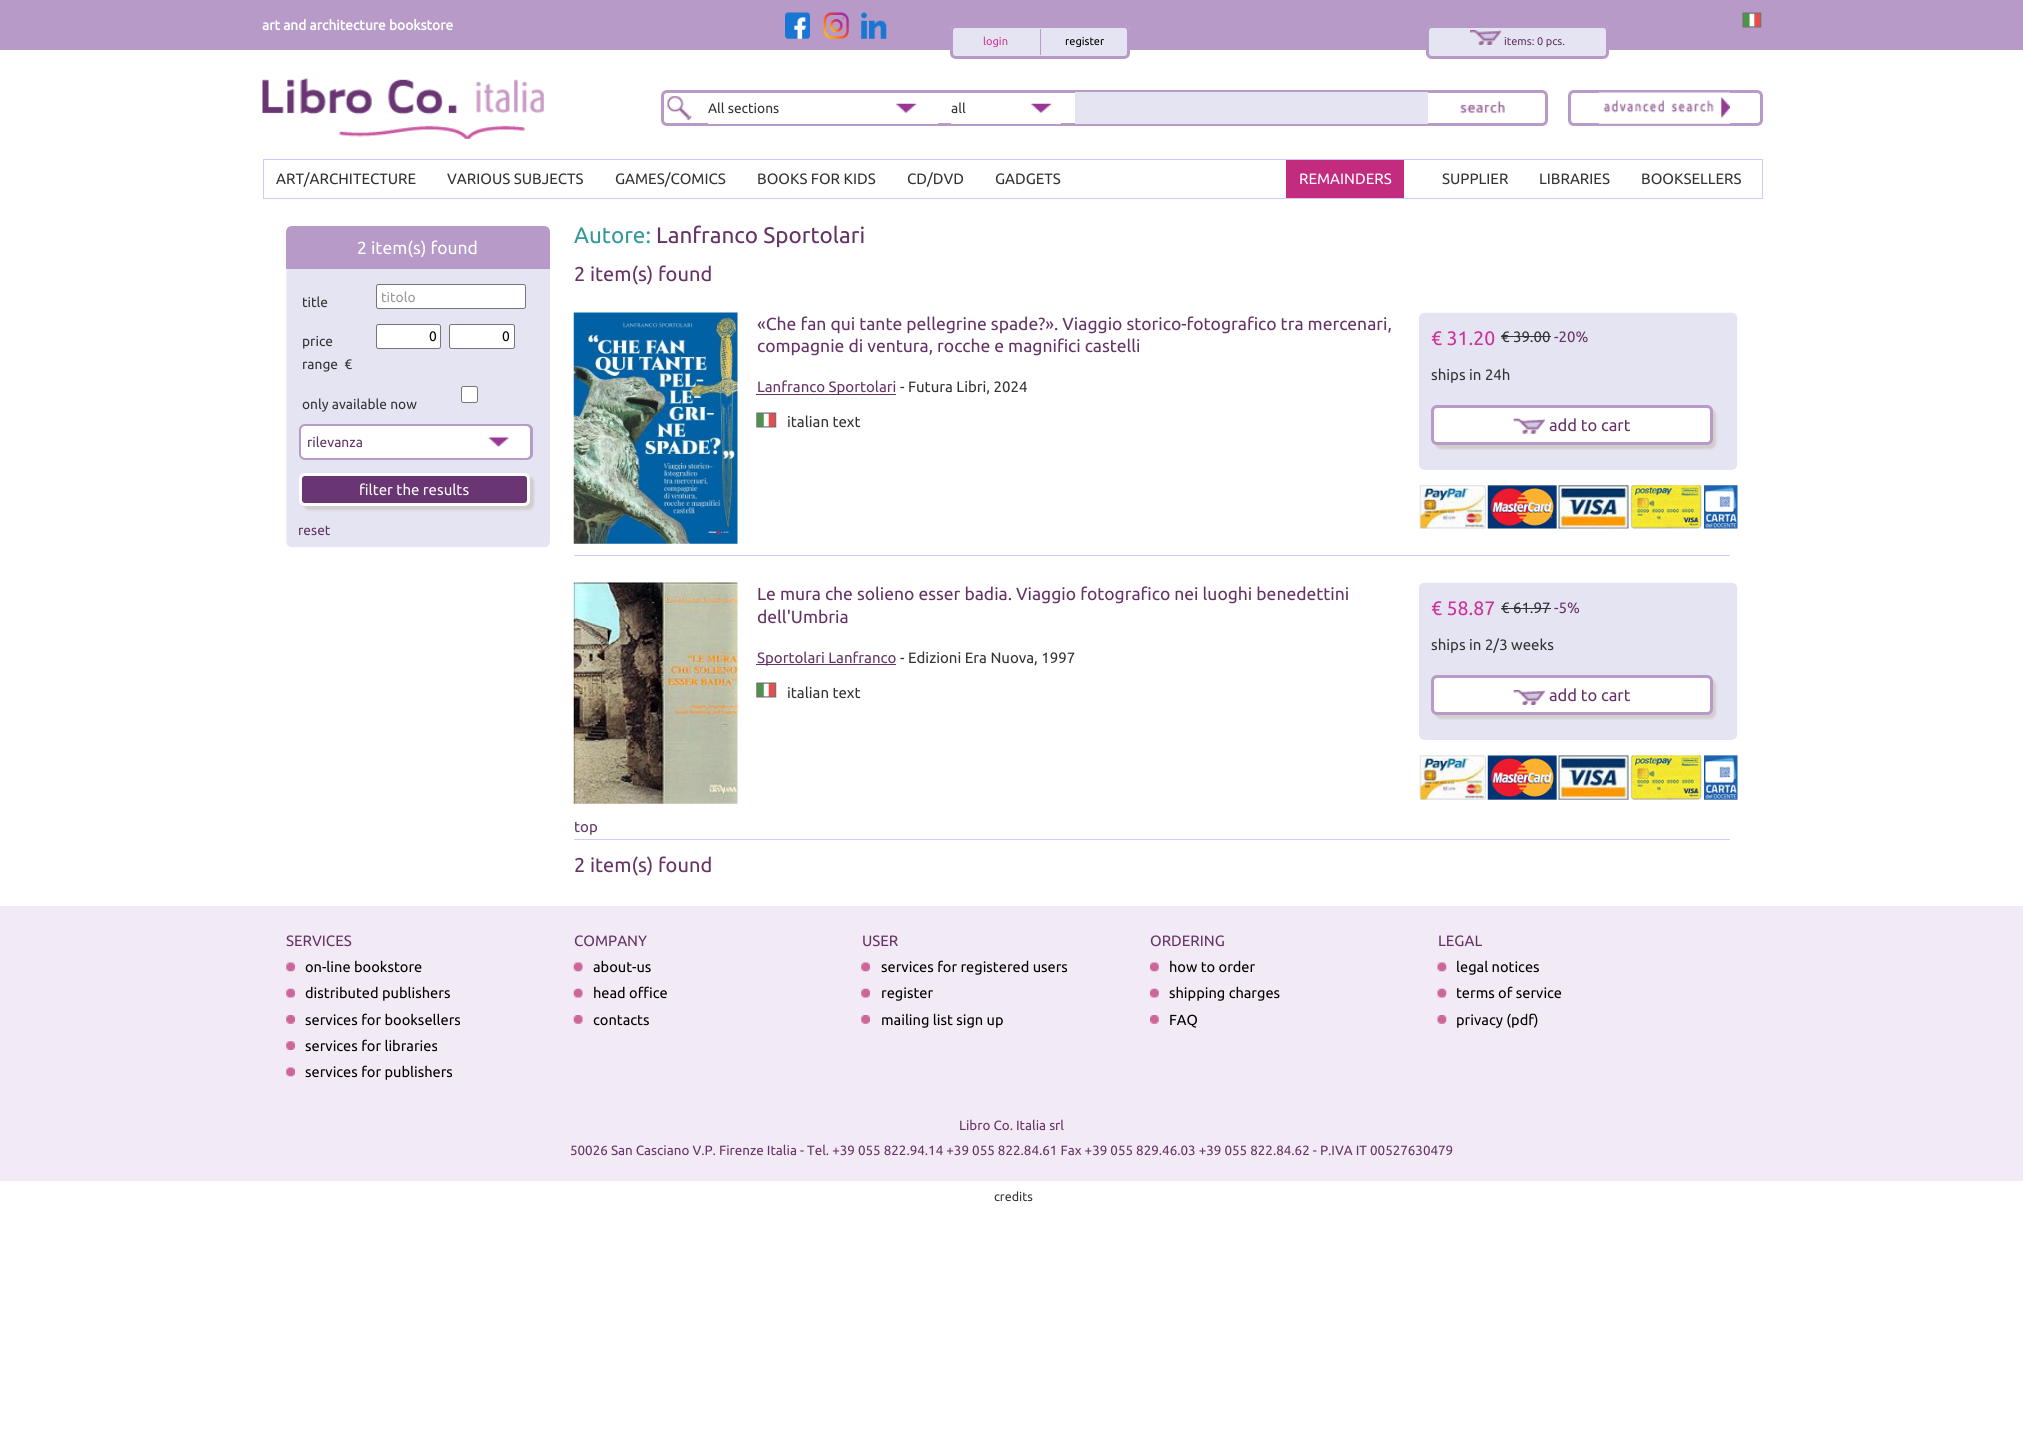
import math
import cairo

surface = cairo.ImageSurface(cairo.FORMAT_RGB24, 2023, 1440)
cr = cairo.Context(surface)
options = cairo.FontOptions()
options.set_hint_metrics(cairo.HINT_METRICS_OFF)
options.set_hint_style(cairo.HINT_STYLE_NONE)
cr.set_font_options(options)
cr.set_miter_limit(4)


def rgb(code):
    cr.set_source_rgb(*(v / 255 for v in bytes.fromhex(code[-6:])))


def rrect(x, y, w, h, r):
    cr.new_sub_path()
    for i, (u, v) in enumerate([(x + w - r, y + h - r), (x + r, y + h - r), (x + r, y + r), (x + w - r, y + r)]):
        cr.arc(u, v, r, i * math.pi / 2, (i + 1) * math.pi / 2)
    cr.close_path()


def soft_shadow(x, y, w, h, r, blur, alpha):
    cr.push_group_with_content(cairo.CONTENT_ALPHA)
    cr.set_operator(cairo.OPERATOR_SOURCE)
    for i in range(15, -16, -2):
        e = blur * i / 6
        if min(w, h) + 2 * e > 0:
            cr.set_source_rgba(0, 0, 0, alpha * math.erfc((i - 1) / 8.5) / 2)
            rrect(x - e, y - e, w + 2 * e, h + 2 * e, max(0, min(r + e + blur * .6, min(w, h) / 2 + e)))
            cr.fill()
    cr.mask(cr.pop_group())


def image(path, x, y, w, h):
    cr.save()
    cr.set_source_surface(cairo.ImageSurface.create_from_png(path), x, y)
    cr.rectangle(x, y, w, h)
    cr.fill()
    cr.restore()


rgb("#ffffff")
cr.paint()
rgb("#b79ac8")
cr.rectangle(0, 0, 2023, 50)
cr.fill()
image("img/1.png", 785, 12, 25, 27)
image("img/2.png", 823, 12, 26, 27)
image("img/3.png", 861, 12, 26, 27)
image("img/4.png", 1742, 12, 20, 16)
image("img/5.png", 950, 25, 180, 34)
rrect(951.5, 26.5, 177, 31, 4.5)
cr.set_line_width(3)
cr.stroke()
cr.rectangle(1040, 29, 1, 26)
cr.fill()
image("img/6.png", 1426, 25, 183, 34)
rrect(1427.5, 26.5, 180, 31, 4.5)
cr.stroke()
image("img/7.png", 1470, 30, 32, 15)
image("img/8.png", 262, 78, 282, 61)
image("img/9.png", 667, 96, 25, 25)
rrect(662.5, 91.5, 884, 33, 4.5)
cr.stroke()
rgb("#ffffff")
cr.rectangle(708, 123, 230, 1)
cr.fill()
image("img/10.png", 896, 103, 21, 10)
cr.rectangle(951, 123, 110, 1)
cr.fill()
image("img/10.png", 1031, 103, 21, 10)
rgb("#e5e4f2")
cr.rectangle(1075, 92, 353, 32)
cr.fill()
image("img/11.png", 1460, 101, 45, 13)
rrect(1569.5, 91.5, 192, 33, 4.5)
rgb("#b79ac8")
cr.stroke()
image("img/12.png", 1598, 92, 132, 32)
cr.rectangle(263.5, 159.5, 1499, 39)
rgb("#d0c9ff")
cr.set_line_width(1)
cr.stroke()
rgb("#c32b7e")
cr.rectangle(1286, 160, 118, 38)
cr.fill()
image("img/13.png", 286, 226, 264, 322)
rgb("#b79ac8")
cr.new_path()
cr.move_to(292, 226)
cr.line_to(544, 226)
cr.curve_to(547.5, 226, 550, 228.5, 550, 232)
cr.line_to(550, 269)
cr.line_to(286, 269)
cr.line_to(286, 232)
cr.curve_to(286, 228.5, 288.5, 226, 292, 226)
cr.close_path()
cr.fill()
rgb("#ffffff")
rrect(376.5, 284.5, 149, 24, 2)
cr.fill_preserve()
rgb("#767676")
cr.stroke()
rgb("#ffffff")
rrect(376.5, 324.5, 64, 24, 2)
cr.fill_preserve()
rgb("#767676")
cr.stroke()
rgb("#ffffff")
rrect(449.5, 324.5, 65, 24, 2)
cr.fill_preserve()
rgb("#767676")
cr.stroke()
rgb("#ffffff")
rrect(461.5, 386.5, 16, 16, 2)
cr.fill_preserve()
rgb("#767676")
cr.stroke()
rrect(300.5, 425.5, 231, 33, 4.5)
rgb("#b79ac8")
cr.set_line_width(3)
cr.stroke()
rgb("#ffffff")
rrect(301, 426, 229, 32, 4)
cr.fill()
image("img/14.png", 488, 437, 21, 10)
rgb("#d2cdcd")
soft_shadow(303, 476, 231, 34, 6, 1, 1)
rgb("#693572")
rrect(300.5, 474.5, 228, 30, 4.5)
cr.fill_preserve()
rgb("#ffffff")
cr.stroke()
image("img/15.png", 573, 312, 165, 232)
rgb("#663366")
cr.rectangle(756, 394, 140, 1)
cr.fill()
image("img/16.png", 756, 412, 21, 16)
image("img/17.png", 1419, 312, 319, 158)
rgb("#333333")
cr.rectangle(1501, 336, 50, 1)
cr.fill()
rgb("#d2cdcd")
soft_shadow(1435, 409, 281, 40, 6, 1, 1)
rgb("#ffffff")
rrect(1432.5, 406.5, 279, 37, 4.5)
cr.fill_preserve()
rgb("#b79ac8")
cr.stroke()
image("img/18.png", 1513, 418, 32, 16)
image("img/19.png", 1419, 485, 319, 44)
rgb("#ccccff")
cr.rectangle(574, 555, 1156, 1)
cr.fill()
image("img/20.png", 573, 582, 165, 222)
rgb("#663366")
cr.rectangle(756, 664, 140, 1)
cr.fill()
image("img/16.png", 756, 682, 21, 16)
image("img/17.png", 1419, 582, 319, 158)
rgb("#333333")
cr.rectangle(1501, 608, 50, 1)
cr.fill()
rgb("#d2cdcd")
soft_shadow(1435, 679, 281, 40, 6, 1, 1)
rgb("#ffffff")
rrect(1432.5, 676.5, 279, 37, 4.5)
cr.fill_preserve()
rgb("#b79ac8")
cr.stroke()
image("img/21.png", 1513, 690, 32, 15)
image("img/22.png", 1419, 755, 319, 45)
rgb("#ccccff")
cr.rectangle(574, 839, 1156, 1)
cr.fill()
rgb("#f2eaf5")
cr.rectangle(0, 906, 2023, 275)
cr.fill()
image("img/23.png", 286, 962, 9, 10)
image("img/24.png", 286, 988, 9, 10)
image("img/25.png", 286, 1015, 9, 9)
image("img/26.png", 286, 1041, 9, 9)
image("img/23.png", 286, 1067, 9, 10)
image("img/27.png", 573, 962, 10, 10)
image("img/28.png", 573, 988, 10, 10)
image("img/29.png", 573, 1015, 10, 9)
image("img/23.png", 861, 962, 9, 10)
image("img/24.png", 861, 988, 9, 10)
image("img/25.png", 861, 1015, 9, 9)
image("img/30.png", 1150, 962, 9, 10)
image("img/31.png", 1150, 988, 9, 10)
image("img/32.png", 1150, 1015, 9, 9)
image("img/33.png", 1437, 962, 10, 10)
image("img/34.png", 1437, 988, 10, 10)
image("img/35.png", 1437, 1015, 10, 9)
cr.select_font_face("Ubuntu", cairo.FONT_SLANT_NORMAL, cairo.FONT_WEIGHT_BOLD)
cr.set_font_size(13.75)
rgb("#ffffff")
cr.move_to(262, 30)
cr.show_text("art and architecture bookstore")
cr.select_font_face("Ubuntu")
cr.set_font_size(11)
rgb("#cc3399")
cr.move_to(983, 45)
cr.show_text("login")
rgb("#000000")
cr.move_to(1065, 45)
cr.show_text("register")
rgb("#663366")
cr.move_to(1504, 45)
cr.show_text("items: 0 pcs.")
cr.set_font_size(13.75)
rgb("#333333")
cr.move_to(708, 113)
cr.show_text("All sections")
cr.move_to(951, 113)
cr.show_text("all")
cr.set_font_size(15)
for x, y, s in [
    (276, 184, "ART/ARCHITECTURE"),
    (447, 184, "VARIOUS SUBJECTS"),
    (615, 184, "GAMES/COMICS"),
    (757, 184, "BOOKS FOR KIDS"),
    (907, 184, "CD/DVD"),
    (995, 184, "GADGETS"),
]:
    cr.move_to(x, y)
    cr.show_text(s)
rgb("#ffffff")
cr.move_to(1299, 184)
cr.show_text("REMAINDERS")
rgb("#333333")
for x, y, s in [
    (1442, 184, "SUPPLIER"),
    (1539, 184, "LIBRARIES"),
    (1641, 184, "BOOKSELLERS"),
]:
    cr.move_to(x, y)
    cr.show_text(s)
cr.set_font_size(17.5)
rgb("#ffffff")
cr.move_to(357, 254)
cr.show_text("2 item(s) found")
cr.set_font_size(13.75)
rgb("#333333")
cr.move_to(302, 307)
cr.show_text("title")
rgb("#999999")
cr.move_to(381, 302)
cr.show_text("titolo")
rgb("#333333")
cr.move_to(302, 346)
cr.show_text("price")
cr.move_to(302, 369)
cr.show_text("range  €")
rgb("#000000")
cr.move_to(429, 341)
cr.show_text("0")
cr.move_to(502, 341)
cr.show_text("0")
rgb("#333333")
cr.move_to(302, 409)
cr.show_text("only available now")
rgb("#663366")
cr.move_to(307, 447)
cr.show_text("rilevanza")
cr.set_font_size(15)
rgb("#ffffff")
cr.move_to(359, 495)
cr.show_text("filter the results")
cr.set_font_size(13.75)
rgb("#663366")
cr.move_to(298, 535)
cr.show_text("reset")
cr.set_font_size(22.5)
rgb("#339999")
cr.move_to(574, 243)
cr.show_text("Autore:")
rgb("#663366")
cr.move_to(656, 243)
cr.show_text("Lanfranco Sportolari")
cr.set_font_size(20)
cr.move_to(574, 281)
cr.show_text("2 item(s) found")
cr.set_font_size(17.5)
cr.move_to(757, 330)
cr.show_text("«Che fan qui tante pellegrine spade?». Viaggio storico-fotografico tra mercenari,")
cr.move_to(757, 352)
cr.show_text("compagnie di ventura, rocche e magnifici castelli")
cr.set_font_size(15)
cr.move_to(757, 392)
cr.show_text("Lanfranco Sportolari")
rgb("#333333")
cr.move_to(900, 392)
cr.show_text("- Futura Libri, 2024")
cr.move_to(787, 427)
cr.show_text("italian text")
cr.set_font_size(19.5)
rgb("#cc3399")
cr.move_to(1431, 345)
cr.show_text("€ 31.20")
cr.set_font_size(15)
rgb("#333333")
cr.move_to(1501, 342)
cr.show_text("€ 39.00")
rgb("#663366")
cr.move_to(1554, 342)
cr.show_text("-20%")
rgb("#333333")
cr.move_to(1431, 380)
cr.show_text("ships in 24h")
cr.set_font_size(16.5)
rgb("#663366")
cr.move_to(1549, 431)
cr.show_text("add to cart")
cr.set_font_size(17.5)
cr.move_to(757, 600)
cr.show_text("Le mura che solieno esser badia. Viaggio fotografico nei luoghi benedettini")
cr.move_to(757, 623)
cr.show_text("dell'Umbria")
cr.set_font_size(15)
cr.move_to(757, 663)
cr.show_text("Sportolari Lanfranco")
rgb("#333333")
cr.move_to(900, 663)
cr.show_text("- Edizioni Era Nuova, 1997")
cr.move_to(787, 698)
cr.show_text("italian text")
cr.set_font_size(19.5)
rgb("#cc3399")
cr.move_to(1431, 615)
cr.show_text("€ 58.87")
cr.set_font_size(15)
rgb("#333333")
cr.move_to(1501, 613)
cr.show_text("€ 61.97")
rgb("#663366")
cr.move_to(1554, 613)
cr.show_text("-5%")
rgb("#333333")
cr.move_to(1431, 650)
cr.show_text("ships in 2/3 weeks")
cr.set_font_size(16.5)
rgb("#663366")
cr.move_to(1549, 701)
cr.show_text("add to cart")
cr.set_font_size(15)
cr.move_to(574, 832)
cr.show_text("top")
cr.set_font_size(20)
cr.move_to(574, 872)
cr.show_text("2 item(s) found")
cr.set_font_size(15)
cr.move_to(286, 946)
cr.show_text("SERVICES")
cr.set_font_size(14.6)
rgb("#000000")
for x, y, s in [
    (305, 972, "on-line bookstore"),
    (305, 998, "distributed publishers"),
    (305, 1025, "services for booksellers"),
    (305, 1051, "services for libraries"),
    (305, 1077, "services for publishers"),
]:
    cr.move_to(x, y)
    cr.show_text(s)
cr.set_font_size(15)
rgb("#663366")
cr.move_to(574, 946)
cr.show_text("COMPANY")
cr.set_font_size(14.6)
rgb("#000000")
for x, y, s in [
    (593, 972, "about-us"),
    (593, 998, "head office"),
    (593, 1025, "contacts"),
]:
    cr.move_to(x, y)
    cr.show_text(s)
cr.set_font_size(15)
rgb("#663366")
cr.move_to(862, 946)
cr.show_text("USER")
cr.set_font_size(14.6)
rgb("#000000")
for x, y, s in [
    (881, 972, "services for registered users"),
    (881, 998, "register"),
    (881, 1025, "mailing list sign up"),
]:
    cr.move_to(x, y)
    cr.show_text(s)
cr.set_font_size(15)
rgb("#663366")
cr.move_to(1150, 946)
cr.show_text("ORDERING")
cr.set_font_size(14.6)
rgb("#000000")
for x, y, s in [
    (1169, 972, "how to order"),
    (1169, 998, "shipping charges"),
    (1169, 1025, "FAQ"),
]:
    cr.move_to(x, y)
    cr.show_text(s)
cr.set_font_size(15)
rgb("#663366")
cr.move_to(1438, 946)
cr.show_text("LEGAL")
cr.set_font_size(14.6)
rgb("#000000")
for x, y, s in [
    (1456, 972, "legal notices"),
    (1456, 998, "terms of service"),
    (1456, 1025, "privacy (pdf)"),
]:
    cr.move_to(x, y)
    cr.show_text(s)
cr.set_font_size(13.4)
rgb("#663366")
cr.move_to(959, 1130)
cr.show_text("Libro Co. Italia srl")
cr.move_to(570, 1155)
cr.show_text("50026 San Casciano V.P. Firenze Italia - Tel. +39 055 822.94.14 +39 055 822.84.61 Fax +39 055 829.46.03 +39 055 822.84.62 - P.IVA IT 00527630479")
cr.set_font_size(12.5)
rgb("#333333")
cr.move_to(994, 1201)
cr.show_text("credits")
surface.write_to_png("page.png")
